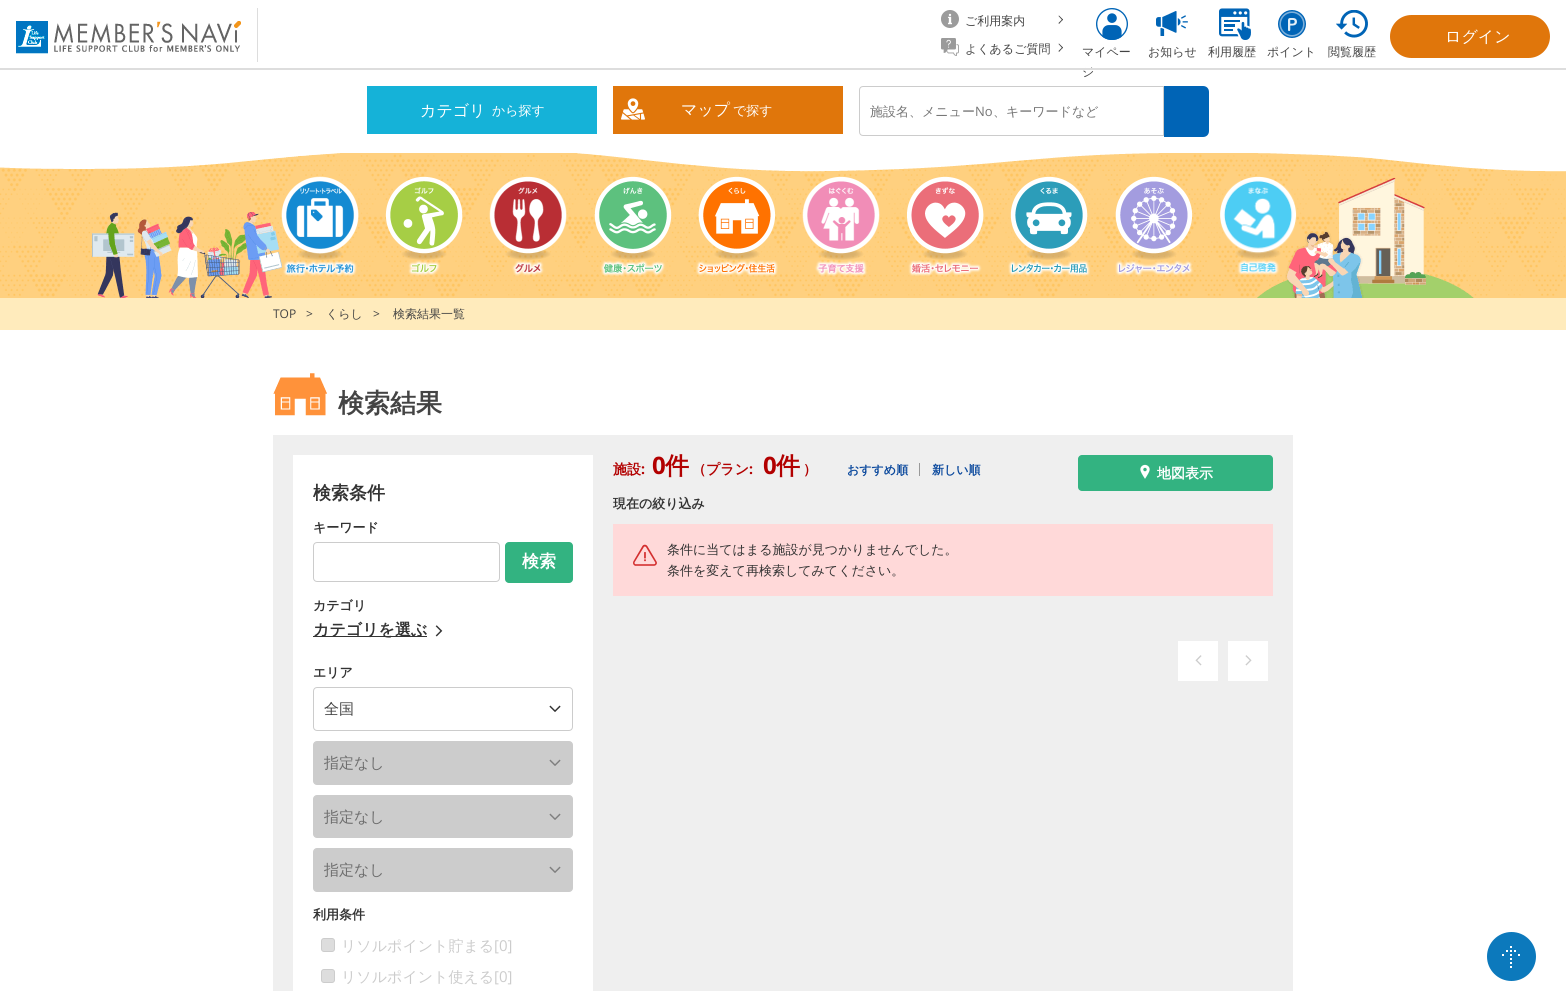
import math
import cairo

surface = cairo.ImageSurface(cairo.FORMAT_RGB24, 1566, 991)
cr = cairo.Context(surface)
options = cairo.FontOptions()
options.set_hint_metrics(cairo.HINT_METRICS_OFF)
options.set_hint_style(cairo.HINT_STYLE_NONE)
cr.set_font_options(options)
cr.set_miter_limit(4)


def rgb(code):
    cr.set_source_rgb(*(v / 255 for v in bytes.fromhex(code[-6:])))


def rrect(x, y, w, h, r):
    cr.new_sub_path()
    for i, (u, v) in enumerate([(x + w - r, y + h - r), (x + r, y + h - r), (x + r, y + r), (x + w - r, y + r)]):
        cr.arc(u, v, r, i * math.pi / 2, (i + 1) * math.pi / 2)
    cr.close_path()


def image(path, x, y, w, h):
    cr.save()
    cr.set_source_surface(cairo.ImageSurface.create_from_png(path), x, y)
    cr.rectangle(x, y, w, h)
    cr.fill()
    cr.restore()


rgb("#ffffff")
cr.paint()
image("img/1.png", 16, 21, 225, 33)
rgb("#dddddd")
cr.rectangle(257, 8, 1, 54)
cr.fill()
image("img/2.png", 941, 10, 18, 18)
rgb("#444444")
cr.new_path()
cr.move_to(1058.5, 16)
cr.line_to(1059, 15.5)
cr.line_to(1063, 19.5)
cr.line_to(1062.5, 20.5)
cr.close_path()
cr.fill()
cr.new_path()
cr.move_to(1058.5, 23)
cr.line_to(1062.5, 19)
cr.line_to(1063, 19.5)
cr.line_to(1059, 24)
cr.close_path()
cr.fill()
image("img/3.png", 941, 38, 18, 18)
cr.new_path()
cr.move_to(1058.5, 44)
cr.line_to(1059, 43.5)
cr.line_to(1063, 47.5)
cr.line_to(1062.5, 48.5)
cr.close_path()
cr.fill()
cr.new_path()
cr.move_to(1058.5, 51)
cr.line_to(1062.5, 47)
cr.line_to(1063, 47.5)
cr.line_to(1059, 52)
cr.close_path()
cr.fill()
rgb("#e0760b")
rrect(1390, 15, 160, 43, 21.5)
cr.fill()
image("img/4.png", 1096, 8, 32, 32)
image("img/5.png", 1156, 11, 32, 25)
image("img/6.png", 1219, 8, 32, 32)
image("img/7.png", 1278, 10, 28, 28)
image("img/8.png", 1336, 10, 32, 28)
rgb("#15b2d8")
cr.rectangle(367, 86, 230, 48)
cr.fill()
rgb("#e0760b")
cr.rectangle(613, 86, 230, 48)
cr.fill()
image("img/9.png", 621, 98, 24, 22)
cr.new_path()
cr.move_to(863, 86.5)
cr.line_to(1163.5, 86.5)
cr.line_to(1163.5, 135.5)
cr.line_to(863, 135.5)
cr.curve_to(861, 135.5, 859.5, 134, 859.5, 132)
cr.line_to(859.5, 90)
cr.curve_to(859.5, 88, 861, 86.5, 863, 86.5)
cr.close_path()
rgb("#cccccc")
cr.set_line_width(1)
cr.stroke()
rgb("#0064b6")
cr.new_path()
cr.move_to(1164, 86)
cr.line_to(1203, 86)
cr.curve_to(1206.5, 86, 1209, 88.5, 1209, 92)
cr.line_to(1209, 131)
cr.curve_to(1209, 134.5, 1206.5, 137, 1203, 137)
cr.line_to(1164, 137)
cr.close_path()
cr.fill()
image("img/10.png", 0, 153, 1566, 145)
image("img/11.png", 281, 176, 78, 100)
image("img/12.png", 385, 176, 78, 100)
image("img/13.png", 489, 176, 78, 100)
image("img/14.png", 594, 176, 78, 100)
image("img/15.png", 696, 176, 82, 100)
image("img/16.png", 802, 176, 78, 100)
image("img/17.png", 907, 176, 77, 100)
image("img/18.png", 1008, 176, 82, 100)
image("img/19.png", 1115, 176, 78, 100)
image("img/20.png", 1220, 176, 77, 99)
rgb("#ffebbc")
cr.rectangle(0, 298, 1566, 32)
cr.fill()
image("img/21.png", 273, 373, 54, 43)
rgb("#efefef")
cr.rectangle(273, 435, 1020, 556)
cr.fill()
rgb("#ffffff")
cr.rectangle(293, 455, 300, 536)
cr.fill()
rrect(313.5, 542.5, 186, 39, 3.5)
rgb("#cccccc")
cr.stroke()
rgb("#33b381")
rrect(505, 542, 68, 41, 4)
cr.fill()
rgb("#333333")
cr.rectangle(313, 636, 114, 1)
cr.fill()
image("img/22.png", 435, 625, 8, 12)
rrect(313.5, 687.5, 259, 43, 3.5)
rgb("#cccccc")
cr.stroke()
image("img/23.png", 549, 705, 12, 7)
rrect(313.5, 741.5, 259, 43, 3.5)
cr.fill_preserve()
cr.stroke()
image("img/24.png", 549, 759, 12, 7)
rrect(313.5, 795.5, 259, 42, 3.5)
cr.fill_preserve()
cr.stroke()
image("img/24.png", 549, 813, 12, 7)
rrect(313.5, 848.5, 259, 43, 3.5)
cr.fill_preserve()
cr.stroke()
image("img/24.png", 549, 866, 12, 7)
rgb("#dddddd")
rrect(321.5, 938.5, 13, 13, 2.5)
cr.fill_preserve()
rgb("#cccccc")
cr.stroke()
rgb("#dddddd")
rrect(321.5, 969.5, 13, 13, 2.5)
cr.fill_preserve()
rgb("#cccccc")
cr.stroke()
rgb("#999999")
cr.rectangle(919, 463, 1, 13)
cr.fill()
rgb("#33b381")
rrect(1078, 455, 195, 36, 4)
cr.fill()
image("img/25.png", 1140, 464, 10, 15)
rgb("#ffd9d9")
cr.rectangle(613, 524, 660, 72)
cr.fill()
image("img/26.png", 633, 544, 24, 22)
rgb("#ffffff")
cr.rectangle(1178, 641, 40, 40)
cr.fill()
image("img/27.png", 1195, 655, 7, 11)
cr.rectangle(1228, 641, 40, 40)
cr.fill()
image("img/28.png", 1245, 655, 7, 11)
rgb("#0c79bc")
cr.arc(1511.5, 956.5, 24.5, 0, 2 * math.pi)
cr.fill()
image("img/29.png", 1502, 946, 18, 22)
cr.select_font_face("WenQuanYi Zen Hei Medium")
cr.set_font_size(12)
rgb("#444444")
cr.move_to(965, 25)
cr.show_text("ご利用案内")
cr.move_to(965, 53)
cr.show_text("よくあるご質問")
cr.set_font_size(16)
rgb("#ffffff")
cr.move_to(1445, 42)
cr.show_text("ログイン")
cr.set_font_size(12)
rgb("#444444")
for x, y, s in [
    (1082, 56, "マイペー"),
    (1082, 76, "ジ"),
    (1148, 56, "お知らせ"),
    (1208, 56, "利用履歴"),
    (1267, 56, "ポイント"),
    (1328, 56, "閲覧履歴"),
]:
    cr.move_to(x, y)
    cr.show_text(s)
rgb("#dddddd")
cr.rectangle(0, 68, 1566, 2)
cr.fill()
cr.set_font_size(16)
rgb("#ffffff")
cr.move_to(420, 116)
cr.show_text("カテゴリ")
cr.set_font_size(13)
cr.move_to(492, 115)
cr.show_text("から探す")
cr.set_font_size(16)
cr.move_to(681, 115)
cr.show_text("マップ")
cr.set_font_size(13)
cr.move_to(733, 115)
cr.show_text("で探す")
rgb("#757575")
cr.move_to(870, 116)
cr.show_text("施設名、メニュー")
cr.select_font_face("Open Sans")
cr.move_to(975, 116)
cr.show_text("No")
cr.select_font_face("WenQuanYi Zen Hei Medium")
cr.move_to(993, 116)
cr.show_text("、キーワードなど")
cr.select_font_face("Open Sans")
cr.set_font_size(12)
rgb("#444444")
cr.move_to(273, 318)
cr.show_text("TOP")
cr.move_to(306, 318)
cr.show_text(">")
cr.select_font_face("WenQuanYi Zen Hei Medium")
cr.move_to(326, 318)
cr.show_text("くらし")
cr.select_font_face("Open Sans")
cr.move_to(373, 318)
cr.show_text(">")
cr.select_font_face("WenQuanYi Zen Hei Medium")
cr.move_to(393, 318)
cr.show_text("検索結果一覧")
cr.select_font_face("WenQuanYi Zen Hei", cairo.FONT_SLANT_NORMAL, cairo.FONT_WEIGHT_BOLD)
cr.set_font_size(26)
cr.move_to(338, 412)
cr.show_text("検索結果")
cr.set_font_size(18)
rgb("#333333")
cr.move_to(313, 499)
cr.show_text("検索条件")
cr.set_font_size(13)
cr.move_to(313, 532)
cr.show_text("キーワード")
cr.set_font_size(17)
rgb("#ffffff")
cr.move_to(522, 567)
cr.show_text("検索")
cr.set_font_size(13)
rgb("#333333")
cr.move_to(313, 610)
cr.show_text("カテゴリ")
cr.set_font_size(16)
cr.move_to(313, 635)
cr.show_text("カテゴリを選ぶ")
cr.set_font_size(13)
cr.move_to(313, 677)
cr.show_text("エリア")
cr.select_font_face("WenQuanYi Zen Hei Medium")
cr.set_font_size(15)
rgb("#444444")
cr.move_to(324, 714)
cr.show_text("全国")
rgb("#6d6d6d")
for x, y, s in [
    (324, 768, "指定なし"),
    (324, 822, "指定なし"),
    (324, 875, "指定なし"),
]:
    cr.move_to(x, y)
    cr.show_text(s)
cr.select_font_face("WenQuanYi Zen Hei", cairo.FONT_SLANT_NORMAL, cairo.FONT_WEIGHT_BOLD)
cr.set_font_size(13)
rgb("#333333")
cr.move_to(313, 919)
cr.show_text("利用条件")
cr.select_font_face("WenQuanYi Zen Hei Medium")
cr.set_font_size(15)
rgb("#cccccc")
cr.move_to(341, 951)
cr.show_text("リソルポイント貯まる")
cr.select_font_face("Open Sans")
cr.move_to(494, 951)
cr.show_text("[0]")
cr.select_font_face("WenQuanYi Zen Hei Medium")
cr.move_to(341, 982)
cr.show_text("リソルポイント使える")
cr.select_font_face("Open Sans")
cr.move_to(494, 982)
cr.show_text("[0]")
cr.select_font_face("WenQuanYi Zen Hei", cairo.FONT_SLANT_NORMAL, cairo.FONT_WEIGHT_BOLD)
cr.set_font_size(14)
rgb("#b20000")
cr.move_to(613, 474)
cr.show_text("施設")
cr.select_font_face("Open Sans", cairo.FONT_SLANT_NORMAL, cairo.FONT_WEIGHT_BOLD)
cr.move_to(641, 474)
cr.show_text(":")
cr.set_font_size(24)
cr.move_to(652, 474)
cr.show_text("0")
cr.select_font_face("WenQuanYi Zen Hei", cairo.FONT_SLANT_NORMAL, cairo.FONT_WEIGHT_BOLD)
cr.move_to(665, 474)
cr.show_text("件")
cr.set_font_size(14)
cr.move_to(692, 474)
cr.show_text("（プラン")
cr.select_font_face("Open Sans", cairo.FONT_SLANT_NORMAL, cairo.FONT_WEIGHT_BOLD)
cr.move_to(749, 474)
cr.show_text(":")
cr.set_font_size(24)
cr.move_to(763, 474)
cr.show_text("0")
cr.select_font_face("WenQuanYi Zen Hei", cairo.FONT_SLANT_NORMAL, cairo.FONT_WEIGHT_BOLD)
cr.move_to(776, 474)
cr.show_text("件")
cr.set_font_size(14)
cr.move_to(803, 474)
cr.show_text("）")
cr.set_font_size(12)
rgb("#0b499d")
cr.move_to(847, 474)
cr.show_text("おすすめ順")
cr.move_to(932, 474)
cr.show_text("新しい順")
cr.set_font_size(14)
rgb("#ffffff")
cr.move_to(1157, 478)
cr.show_text("地図表示")
cr.set_font_size(13)
rgb("#333333")
cr.move_to(613, 508)
cr.show_text("現在の絞り込み")
cr.select_font_face("WenQuanYi Zen Hei Medium")
cr.move_to(667, 554)
cr.show_text("条件に当てはまる施設が見つかりませんでした。")
cr.move_to(667, 575)
cr.show_text("条件を変えて再検索してみてください。")
surface.write_to_png("page.png")
